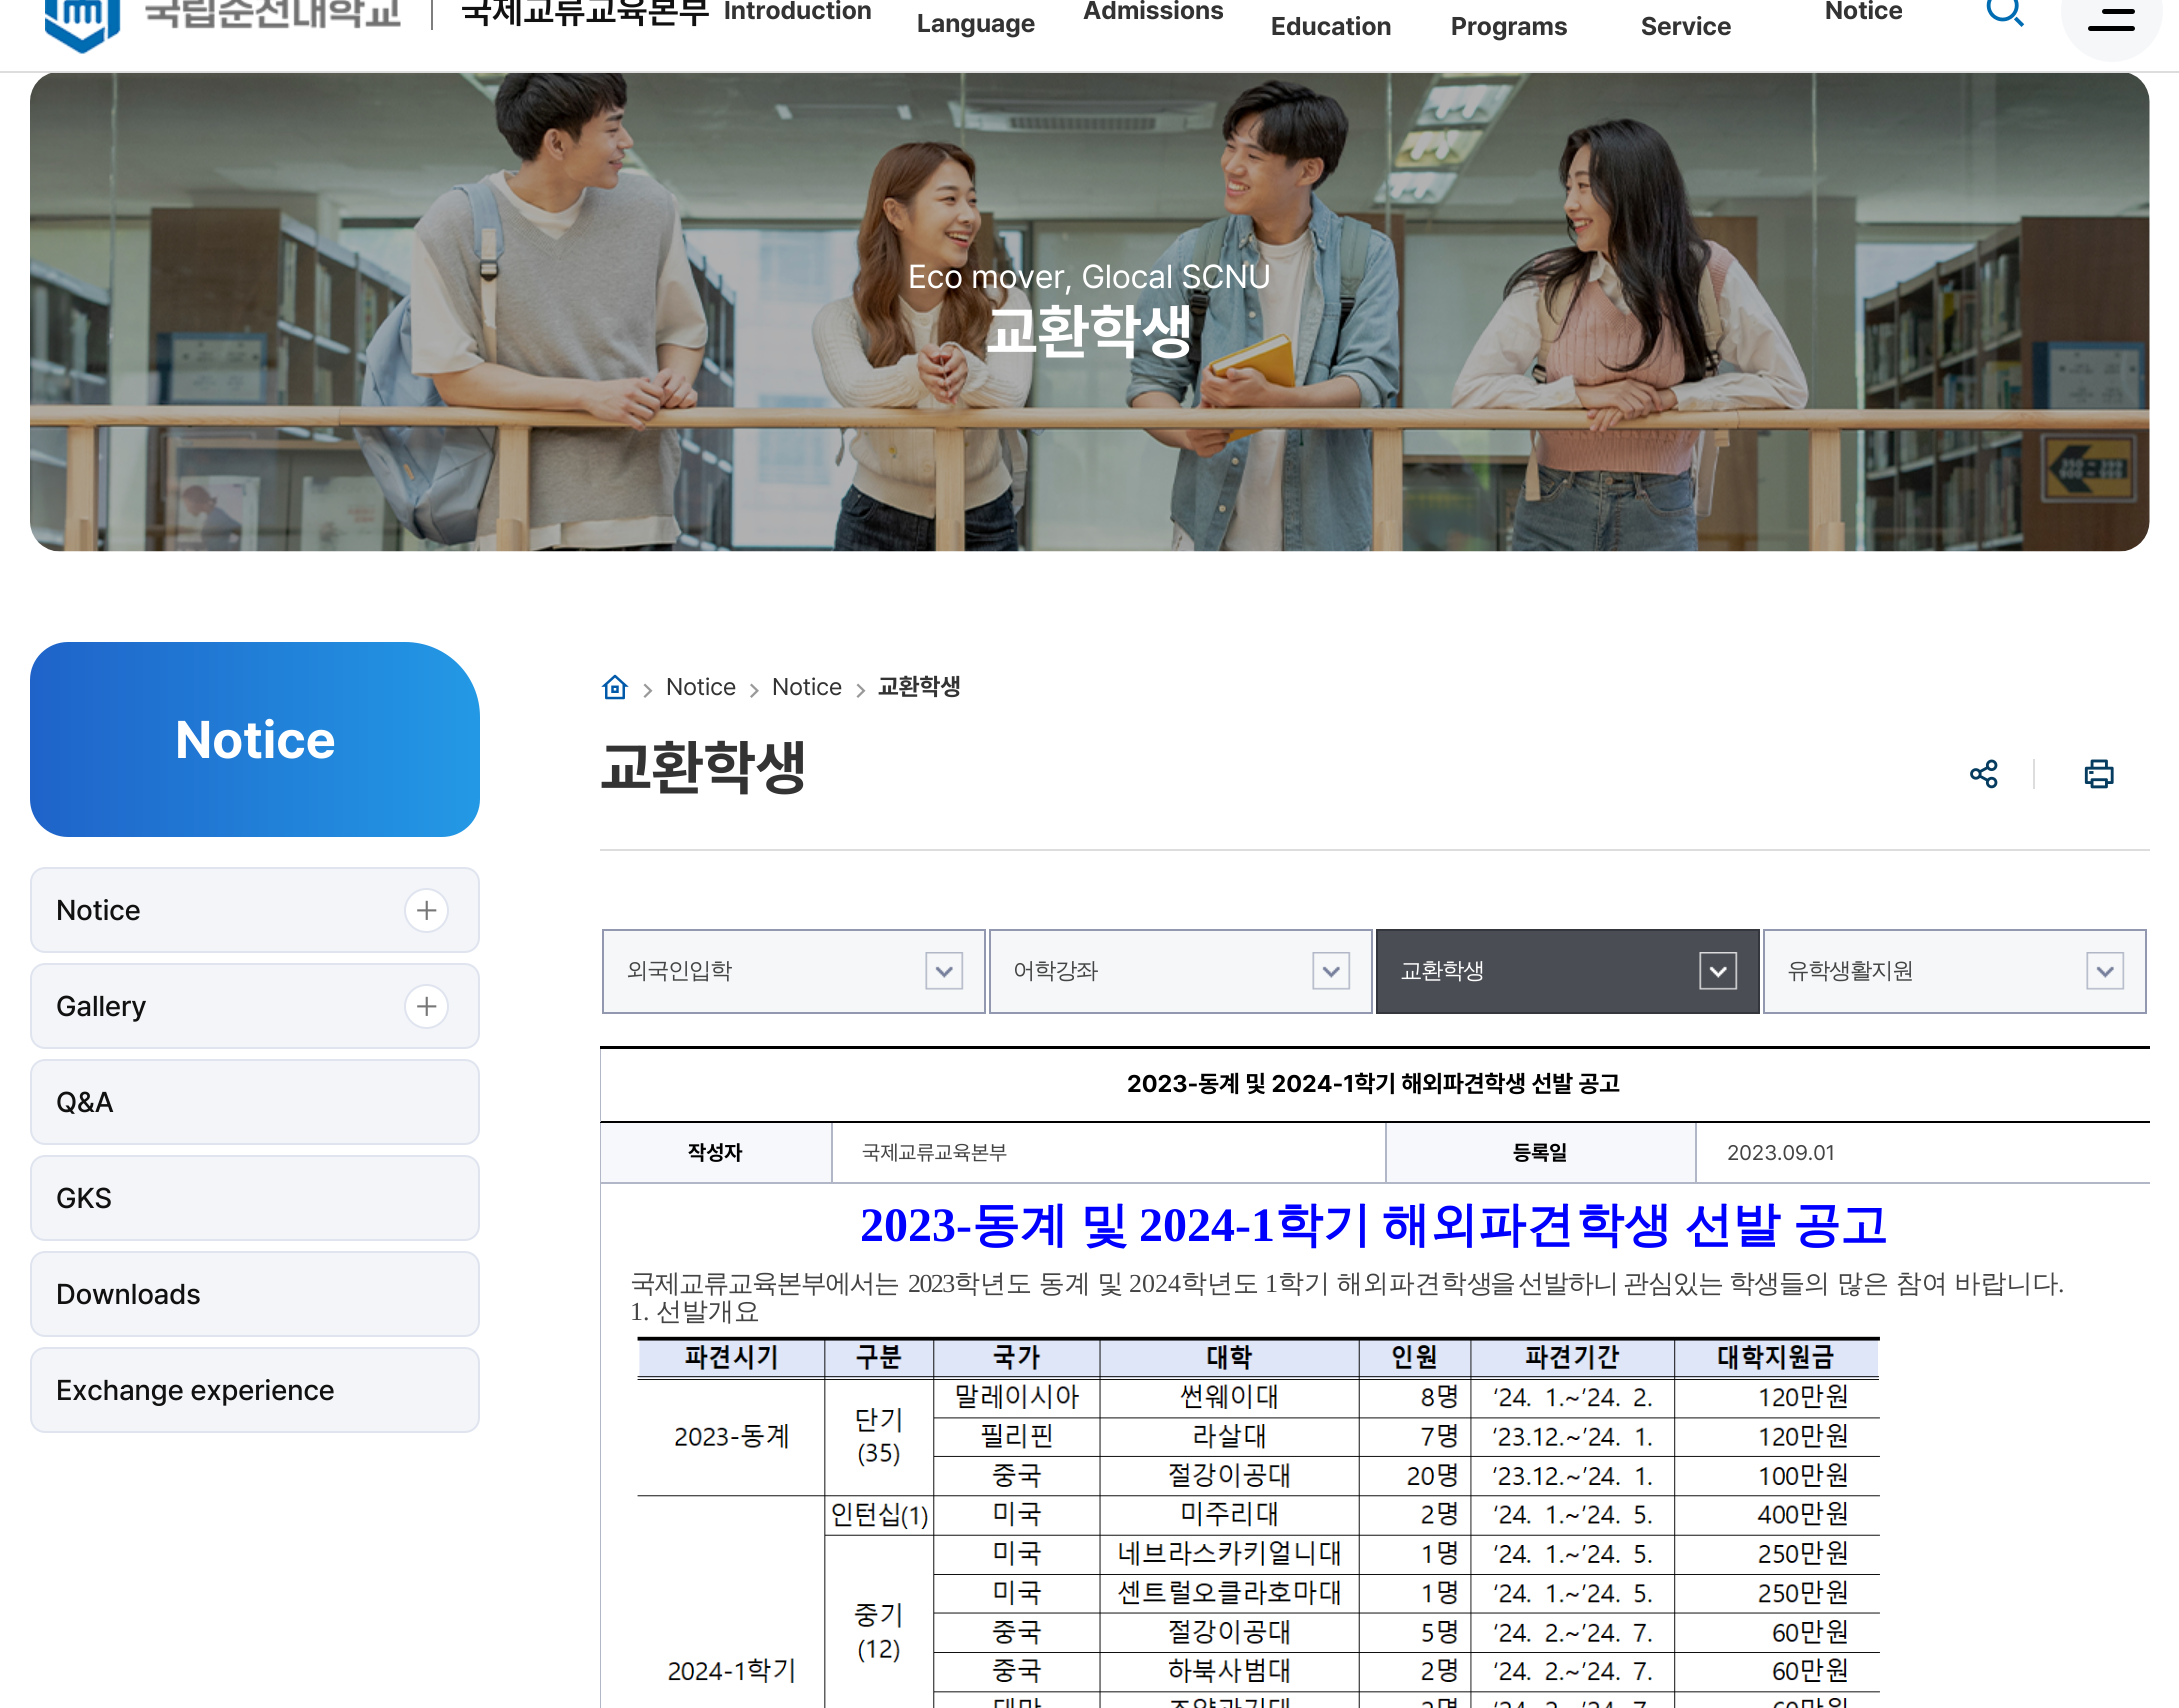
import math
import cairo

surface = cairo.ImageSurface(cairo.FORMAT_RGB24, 2179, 1708)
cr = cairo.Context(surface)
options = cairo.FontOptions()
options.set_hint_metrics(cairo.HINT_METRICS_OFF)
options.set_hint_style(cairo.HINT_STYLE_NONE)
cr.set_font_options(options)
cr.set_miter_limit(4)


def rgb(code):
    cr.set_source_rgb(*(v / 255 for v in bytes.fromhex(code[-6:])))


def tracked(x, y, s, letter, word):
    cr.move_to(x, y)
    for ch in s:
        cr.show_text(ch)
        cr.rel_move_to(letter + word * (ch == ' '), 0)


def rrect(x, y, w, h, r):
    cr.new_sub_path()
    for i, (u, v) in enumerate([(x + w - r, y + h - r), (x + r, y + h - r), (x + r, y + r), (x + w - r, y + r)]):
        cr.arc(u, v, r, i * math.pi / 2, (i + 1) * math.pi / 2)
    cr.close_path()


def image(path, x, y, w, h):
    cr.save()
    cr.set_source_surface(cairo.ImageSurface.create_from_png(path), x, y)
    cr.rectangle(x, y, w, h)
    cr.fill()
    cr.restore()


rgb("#ffffff")
cr.paint()
rgb("#dddddd")
cr.rectangle(0, 71, 2179, 2)
cr.fill()
image("img/1.png", 45, 0, 356, 54)
rgb("#7e7e7e")
cr.rectangle(431, 0, 2, 30)
cr.fill()
image("img/2.png", 1986, 0, 39, 27)
rgb("#f5f7f9")
cr.arc(2112, 11, 51, 0, 2 * math.pi)
cr.fill()
rgb("#000000")
rrect(2102, 9, 33, 5, 2.5)
cr.fill()
rrect(2088, 26, 47, 5, 2.5)
cr.fill()
image("img/3.png", 30, 73, 2120, 479)
image("img/4.png", 601, 674, 28, 26)
image("img/5.png", 643, 683, 10, 15)
image("img/6.png", 750, 683, 9, 15)
image("img/5.png", 856, 683, 10, 15)
gradient = cairo.LinearGradient(30, 740, 480, 740)
gradient.add_color_stop_rgba(0, 0.122, 0.388, 0.788, 1)
gradient.add_color_stop_rgba(1, 0.137, 0.6, 0.898, 1)
cr.set_source(gradient)
cr.new_path()
cr.move_to(68, 642)
cr.line_to(405, 642)
cr.curve_to(446.5, 642, 480, 675.5, 480, 717)
cr.line_to(480, 799)
cr.curve_to(480, 820, 463, 837, 442, 837)
cr.line_to(68, 837)
cr.curve_to(47, 837, 30, 820, 30, 799)
cr.line_to(30, 680)
cr.curve_to(30, 659, 47, 642, 68, 642)
cr.close_path()
cr.fill()
rgb("#f3f5f8")
rrect(31, 868, 448, 84, 14)
cr.fill_preserve()
rgb("#dfe4ef")
cr.stroke()
rgb("#ffffff")
cr.arc(426.5, 910.5, 21.5, 0, 2 * math.pi)
cr.fill_preserve()
rgb("#dfe4ef")
cr.stroke()
image("img/7.png", 417, 900, 20, 20)
rgb("#f3f5f8")
rrect(31, 964, 448, 84, 14)
cr.fill_preserve()
rgb("#dfe4ef")
cr.stroke()
rgb("#ffffff")
cr.arc(426.5, 1006.5, 21.5, 0, 2 * math.pi)
cr.fill_preserve()
rgb("#dfe4ef")
cr.stroke()
image("img/7.png", 417, 996, 20, 20)
rgb("#f3f5f8")
rrect(31, 1060, 448, 84, 14)
cr.fill_preserve()
rgb("#dfe4ef")
cr.stroke()
rgb("#f3f5f8")
rrect(31, 1156, 448, 84, 14)
cr.fill_preserve()
rgb("#dfe4ef")
cr.stroke()
rgb("#f3f5f8")
rrect(31, 1252, 448, 84, 14)
cr.fill_preserve()
rgb("#dfe4ef")
cr.stroke()
rgb("#f3f5f8")
rrect(31, 1348, 448, 84, 14)
cr.fill_preserve()
rgb("#dfe4ef")
cr.stroke()
image("img/8.png", 1970, 759, 28, 30)
rgb("#dddddd")
cr.rectangle(2033, 759, 2, 30)
cr.fill()
image("img/9.png", 2084, 759, 30, 30)
cr.rectangle(600, 849, 1550, 2)
cr.fill()
rgb("#f5f7f8")
cr.rectangle(604, 931, 380, 81)
cr.fill()
image("img/10.png", 925, 952, 39, 38)
cr.rectangle(603, 930, 382, 83)
rgb("#9298af")
cr.stroke()
rgb("#f5f7f8")
cr.rectangle(991, 931, 380, 81)
cr.fill()
image("img/11.png", 1312, 952, 39, 38)
cr.rectangle(990, 930, 382, 83)
rgb("#9298af")
cr.stroke()
rgb("#4a4d54")
cr.rectangle(1378, 931, 380, 81)
cr.fill()
image("img/12.png", 1699, 952, 39, 38)
cr.rectangle(1377, 930, 382, 83)
rgb("#33363c")
cr.stroke()
rgb("#f5f7f8")
cr.rectangle(1765, 931, 380, 81)
cr.fill()
image("img/13.png", 2086, 952, 39, 38)
cr.rectangle(1764, 930, 382, 83)
rgb("#9298af")
cr.stroke()
for x, y, w, h, color in [
    (600, 1046, 1550, 3, "#000000"),
    (1695, 1182, 455, 2, "#b2b7c7"),
    (1695, 1121, 2, 63, "#b2b7c7"),
    (1385, 1182, 312, 2, "#b2b7c7"),
    (1385, 1121, 2, 63, "#b2b7c7"),
    (831, 1182, 555, 2, "#b2b7c7"),
    (831, 1121, 2, 63, "#b2b7c7"),
    (600, 1182, 1, 526, "#b2b7c7"),
    (600, 1182, 233, 2, "#b2b7c7"),
    (600, 1121, 1, 63, "#b2b7c7"),
    (600, 1121, 1550, 2, "#000000"),
    (600, 1049, 1, 73, "#b2b7c7"),
    (601, 1123, 230, 59, "#f7f8fc"),
    (1387, 1123, 308, 59, "#f7f8fc"),
]:
    rgb(color)
    cr.rectangle(x, y, w, h)
    cr.fill()
image("img/14.png", 637, 1336, 1243, 372)
cr.select_font_face("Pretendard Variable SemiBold")
cr.set_font_size(36)
rgb("#111111")
cr.move_to(461, 23)
cr.show_text("국제교류교육본부")
cr.select_font_face("Pretendard Variable", cairo.FONT_SLANT_NORMAL, cairo.FONT_WEIGHT_BOLD)
cr.set_font_size(25.5)
rgb("#333333")
for x, y, s in [
    (724, 19, "Introduction"),
    (1083, 19, "Admissions"),
    (1825, 19, "Notice"),
    (917, 32, "Language"),
    (1271, 35, "Education"),
    (1451, 35, "Programs"),
    (1641, 35, "Service"),
]:
    cr.move_to(x, y)
    cr.show_text(s)
cr.select_font_face("Pretendard Variable")
cr.set_font_size(33)
rgb("#ffffff")
cr.move_to(908, 288)
cr.show_text("Eco mover, Glocal SCNU")
cr.select_font_face("Pretendard Variable", cairo.FONT_SLANT_NORMAL, cairo.FONT_WEIGHT_BOLD)
cr.set_font_size(60)
cr.move_to(986, 353)
cr.show_text("교환학생")
cr.select_font_face("Pretendard Variable")
cr.set_font_size(24)
rgb("#333333")
cr.move_to(666, 695)
cr.show_text("Notice")
cr.move_to(772, 695)
cr.show_text("Notice")
cr.select_font_face("Pretendard Variable", cairo.FONT_SLANT_NORMAL, cairo.FONT_WEIGHT_BOLD)
cr.move_to(878, 695)
cr.show_text("교환학생")
cr.set_font_size(52.5)
rgb("#ffffff")
cr.move_to(175, 758)
cr.show_text("Notice")
cr.select_font_face("Pretendard Variable Medium")
cr.set_font_size(28.5)
rgb("#111111")
for x, y, s in [
    (56, 920, "Notice"),
    (56, 1016, "Gallery"),
    (56, 1112, "Q&A"),
    (56, 1208, "GKS"),
    (56, 1304, "Downloads"),
    (56, 1400, "Exchange experience"),
]:
    cr.move_to(x, y)
    cr.show_text(s)
cr.select_font_face("Pretendard Variable", cairo.FONT_SLANT_NORMAL, cairo.FONT_WEIGHT_BOLD)
cr.set_font_size(60)
rgb("#333333")
cr.move_to(600, 789)
cr.show_text("교환학생")
cr.select_font_face("WenQuanYi Zen Hei Medium")
cr.set_font_size(22.5)
rgb("#444444")
tracked(626, 978, "외국인입학", -1.5, 0)
tracked(1013, 978, "어학강좌", -1.5, 0)
rgb("#ffffff")
tracked(1400, 978, "교환학생", -1.5, 0)
rgb("#444444")
tracked(1787, 978, "유학생활지원", -1.5, 0)
cr.select_font_face("Pretendard Variable", cairo.FONT_SLANT_NORMAL, cairo.FONT_WEIGHT_BOLD)
cr.set_font_size(24)
rgb("#000000")
cr.move_to(1127, 1092)
cr.show_text("2023-동계 및 2024-1학기 해외파견학생 선발 공고")
cr.set_font_size(21)
cr.move_to(688, 1160)
cr.show_text("작성자")
cr.select_font_face("Pretendard Variable")
rgb("#444444")
cr.move_to(862, 1160)
cr.show_text("국제교류교육본부")
cr.select_font_face("Pretendard Variable", cairo.FONT_SLANT_NORMAL, cairo.FONT_WEIGHT_BOLD)
rgb("#000000")
cr.move_to(1513, 1160)
cr.show_text("등록일")
cr.select_font_face("Pretendard Variable")
rgb("#444444")
cr.move_to(1727, 1160)
cr.show_text("2023.09.01")
cr.select_font_face("Liberation Serif", cairo.FONT_SLANT_NORMAL, cairo.FONT_WEIGHT_BOLD)
cr.set_font_size(48)
rgb("#0000ff")
cr.move_to(860, 1241)
cr.show_text("2023-")
cr.select_font_face("WenQuanYi Zen Hei", cairo.FONT_SLANT_NORMAL, cairo.FONT_WEIGHT_BOLD)
tracked(972, 1241, "동계 및", 0, -2)
cr.select_font_face("Liberation Serif", cairo.FONT_SLANT_NORMAL, cairo.FONT_WEIGHT_BOLD)
cr.move_to(1139, 1241)
cr.show_text("2024-1")
cr.select_font_face("WenQuanYi Zen Hei", cairo.FONT_SLANT_NORMAL, cairo.FONT_WEIGHT_BOLD)
cr.move_to(1275, 1241)
cr.show_text("학기")
cr.move_to(1382, 1241)
cr.show_text("해외파견")
tracked(1576, 1241, "학생 선발 공", 0, -2)
cr.move_to(1840, 1241)
cr.show_text("고")
cr.select_font_face("WenQuanYi Zen Hei Medium")
cr.set_font_size(26)
rgb("#444444")
tracked(630, 1292, "국제교류교육본부에서는", -1.6, 0)
cr.select_font_face("Liberation Serif")
tracked(908, 1292, "2023", -1.6, 0)
cr.select_font_face("WenQuanYi Zen Hei Medium")
tracked(954, 1292, "학년도 동계 및", 0, -1)
cr.select_font_face("Liberation Serif")
cr.move_to(1129, 1292)
cr.show_text("2024")
cr.select_font_face("WenQuanYi Zen Hei Medium")
cr.move_to(1181, 1292)
cr.show_text("학년도")
cr.select_font_face("Liberation Serif")
cr.move_to(1265, 1292)
cr.show_text("1")
cr.select_font_face("WenQuanYi Zen Hei Medium")
tracked(1278, 1292, "학기 해외파견학", 0, -1)
tracked(1467, 1292, "생을", -3, 0)
for x, y, s in [
    (1518, 1292, "선발하니"),
    (1623, 1292, "관심있는"),
    (1729, 1292, "학생들의"),
]:
    tracked(x, y, s, -1, 0)
tracked(1837, 1292, "많은 참여 바랍니다", 0, -1)
cr.select_font_face("Liberation Serif")
cr.move_to(2058, 1292)
cr.show_text(".")
cr.move_to(630, 1320)
cr.show_text("1.")
cr.select_font_face("WenQuanYi Zen Hei Medium")
cr.move_to(656, 1320)
cr.show_text("선발개요")
surface.write_to_png("page.png")
